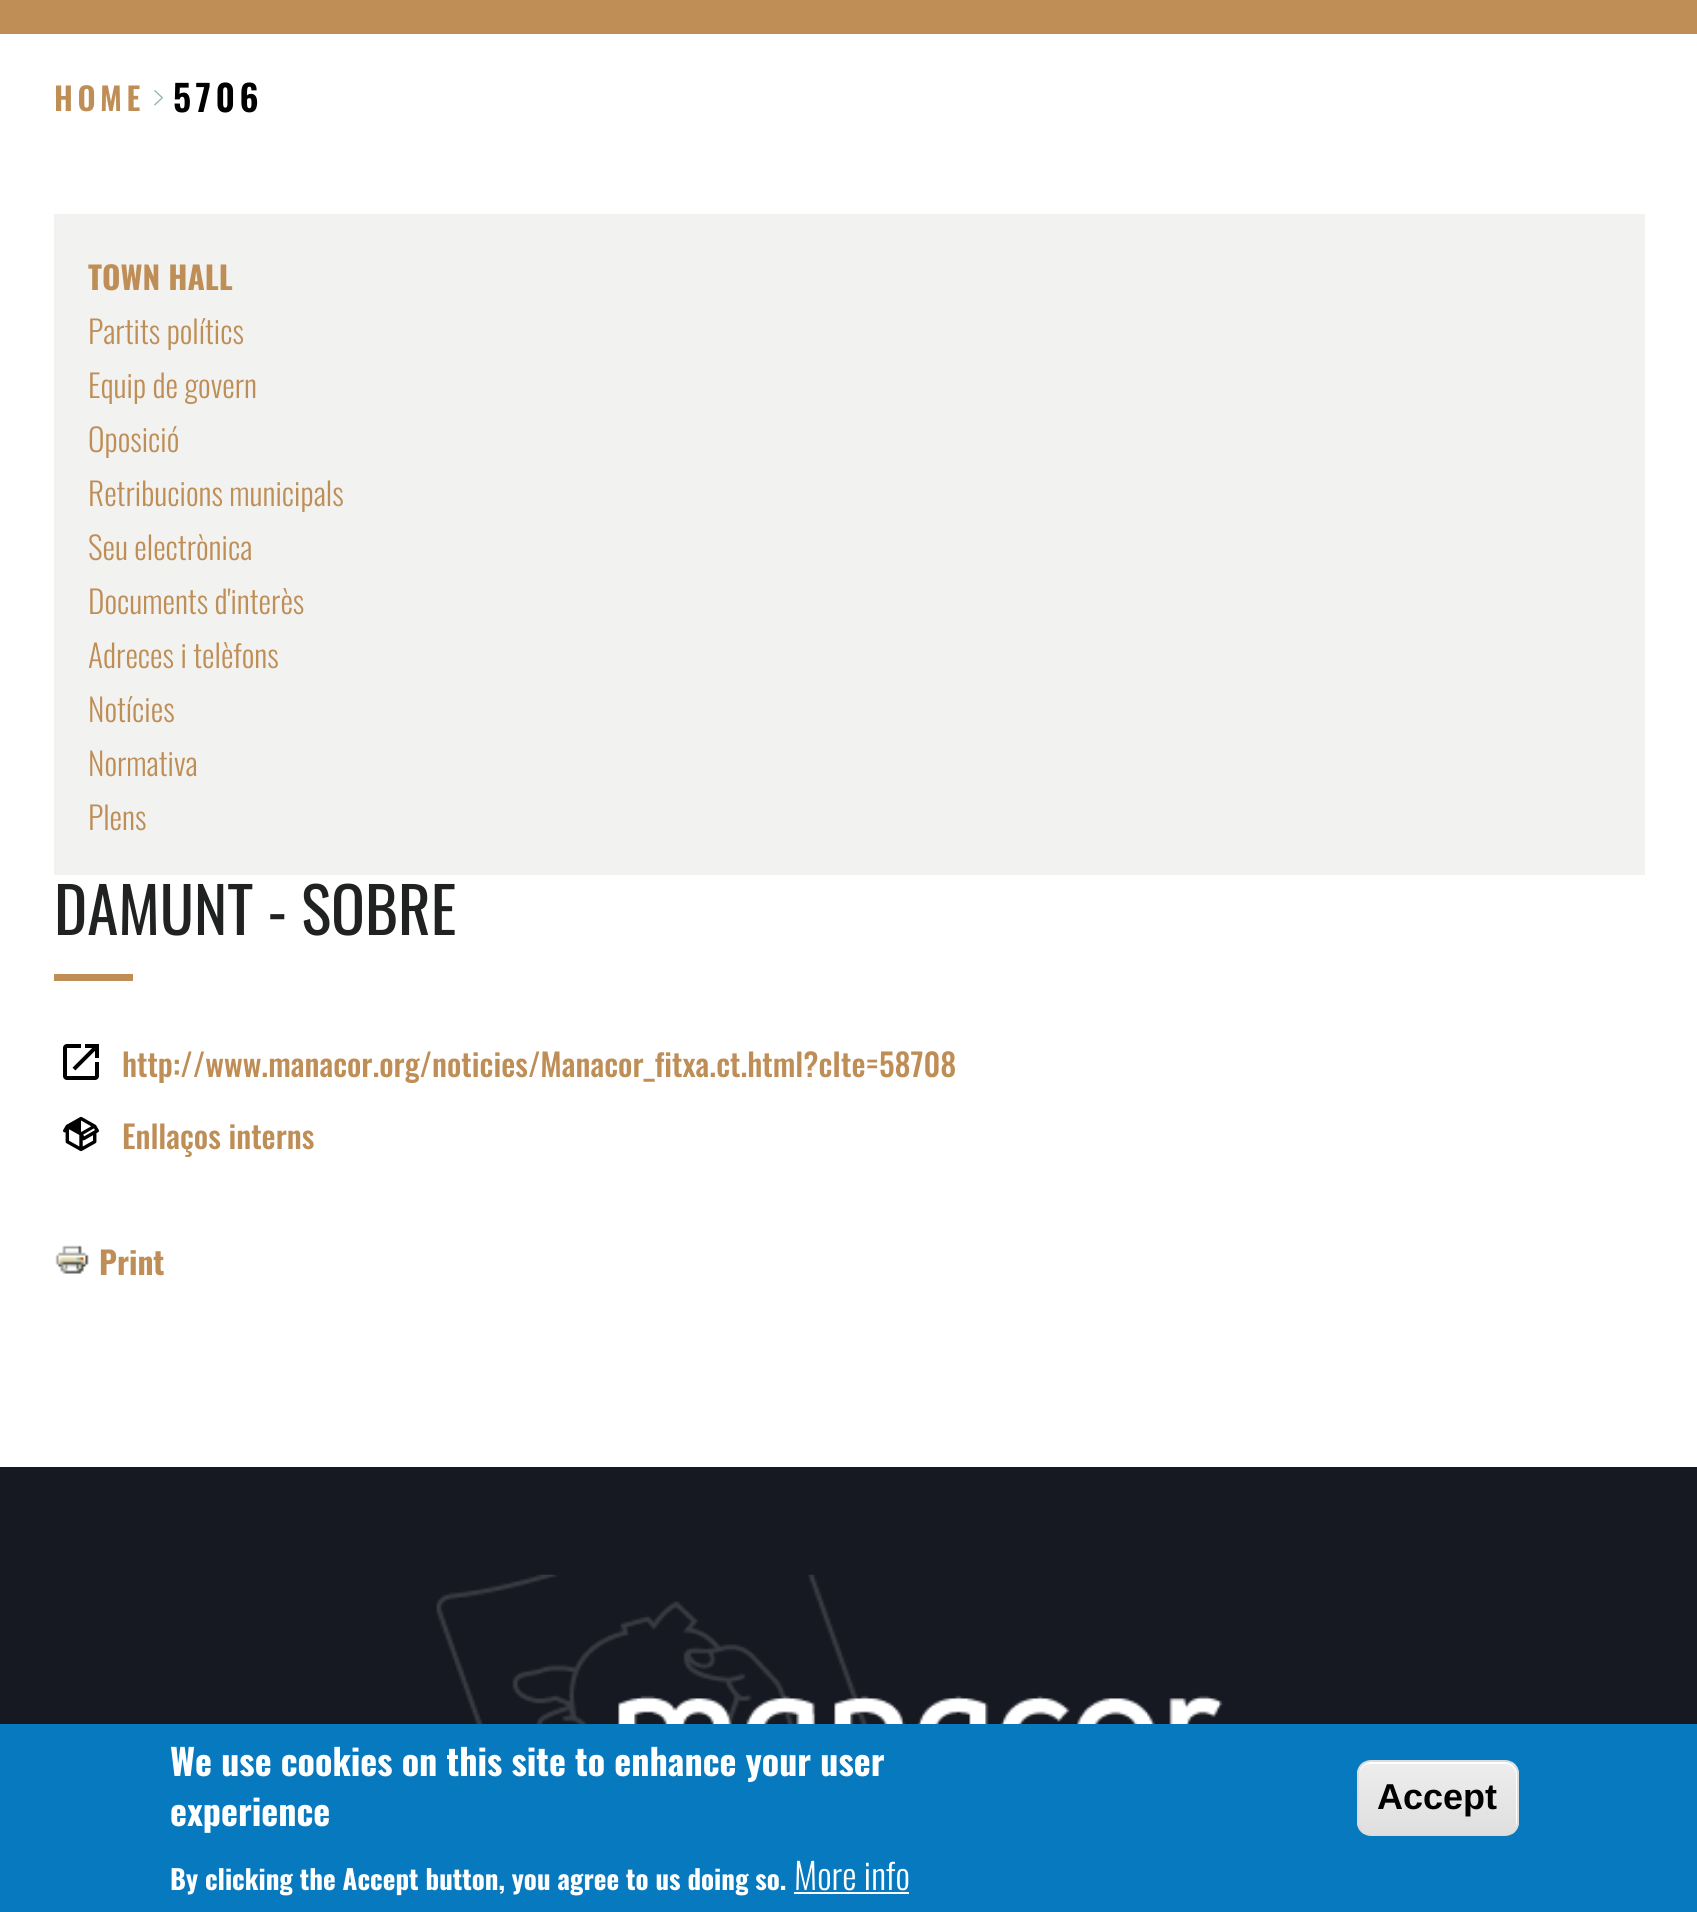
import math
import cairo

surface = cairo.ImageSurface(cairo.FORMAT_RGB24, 1697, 1912)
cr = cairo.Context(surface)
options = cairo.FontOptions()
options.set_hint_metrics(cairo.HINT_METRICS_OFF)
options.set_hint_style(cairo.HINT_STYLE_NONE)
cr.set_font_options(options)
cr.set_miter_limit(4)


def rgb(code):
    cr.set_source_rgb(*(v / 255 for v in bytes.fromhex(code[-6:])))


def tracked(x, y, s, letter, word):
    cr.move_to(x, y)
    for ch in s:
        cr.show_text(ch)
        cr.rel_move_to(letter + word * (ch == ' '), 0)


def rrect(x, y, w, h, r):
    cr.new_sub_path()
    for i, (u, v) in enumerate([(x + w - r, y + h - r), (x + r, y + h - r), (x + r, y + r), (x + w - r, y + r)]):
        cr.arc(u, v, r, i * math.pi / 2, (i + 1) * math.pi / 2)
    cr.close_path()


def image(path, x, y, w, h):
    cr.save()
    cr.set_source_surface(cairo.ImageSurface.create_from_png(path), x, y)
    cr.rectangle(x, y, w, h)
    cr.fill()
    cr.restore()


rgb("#ffffff")
cr.paint()
rgb("#be8e56")
cr.rectangle(0, 0, 1697, 34)
cr.fill()
image("img/1.png", 154, 90, 10, 16)
rgb("#f2f2f1")
cr.rectangle(54, 214, 1591, 661)
cr.fill()
rgb("#be8e56")
cr.rectangle(54, 974, 79, 7)
cr.fill()
image("img/2.png", 63, 1044, 36, 36)
image("img/3.png", 63, 1116, 36, 36)
image("img/4.png", 55, 1245, 34, 29)
rgb("#161921")
cr.rectangle(0, 1467, 1697, 257)
cr.fill()
image("img/5.png", 436, 1574, 787, 150)
rgb("#0779bf")
cr.rectangle(0, 1724, 1697, 188)
cr.fill()
rgb("#ffffff")
cr.rectangle(794, 1892, 115, 2)
cr.fill()
cr.save()
rrect(1357, 1760, 162, 76, 14)
cr.clip()
gradient = cairo.LinearGradient(1438, 1762, 1438, 1834)
gradient.add_color_stop_rgba(0.05, 0.929, 0.929, 0.929, 1)
gradient.add_color_stop_rgba(1, 0.875, 0.875, 0.875, 1)
cr.set_source(gradient)
cr.rectangle(1357, 1762, 162, 72)
cr.fill()
cr.restore()
cr.new_path()
cr.move_to(1370, 1764)
cr.line_to(1505, 1764)
cr.curve_to(1511, 1764, 1516, 1769, 1516, 1775)
cr.line_to(1516, 1825)
cr.line_to(1515, 1829)
cr.curve_to(1516, 1827, 1517, 1825, 1517, 1823)
cr.line_to(1517, 1773)
cr.curve_to(1517, 1767, 1512, 1762, 1506, 1762)
cr.line_to(1370, 1762)
cr.curve_to(1364, 1762, 1359, 1767, 1359, 1773)
cr.line_to(1359, 1775)
cr.curve_to(1359, 1769, 1364, 1764, 1370, 1764)
cr.close_path()
cr.fill()
rrect(1358, 1761, 160, 74, 13)
rgb("#dcdcdc")
cr.stroke()
cr.select_font_face("Oswald SemiBold")
cr.set_font_size(31.5)
rgb("#be8e56")
tracked(54, 111, "HOME", 4.5, 0)
cr.set_font_size(36)
rgb("#000000")
tracked(173, 112, "5706", 4.5, 0)
cr.select_font_face("Oswald", cairo.FONT_SLANT_NORMAL, cairo.FONT_WEIGHT_BOLD)
cr.set_font_size(31.5)
rgb("#be8e56")
cr.move_to(88, 290)
cr.show_text("TOWN HALL")
cr.select_font_face("Oswald Light")
for x, y, s in [
    (88, 344, "Partits polítics"),
    (88, 398, "Equip de govern"),
    (88, 452, "Oposició"),
    (88, 506, "Retribucions municipals"),
    (88, 560, "Seu electrònica"),
    (88, 614, "Documents d'interès"),
    (88, 668, "Adreces i telèfons"),
    (88, 722, "Notícies"),
    (88, 776, "Normativa"),
    (88, 830, "Plens"),
]:
    cr.move_to(x, y)
    cr.show_text(s)
cr.select_font_face("Oswald")
cr.set_font_size(63)
rgb("#202121")
cr.move_to(54, 935)
cr.show_text("DAMUNT - SOBRE")
cr.select_font_face("Oswald Medium")
cr.set_font_size(31.5)
rgb("#be8e56")
cr.move_to(122, 1077)
cr.show_text("http://www.manacor.org/noticies/Manacor_fitxa.ct.html?cIte=58708")
cr.move_to(122, 1149)
cr.show_text("Enllaços interns")
cr.select_font_face("Oswald", cairo.FONT_SLANT_NORMAL, cairo.FONT_WEIGHT_BOLD)
cr.move_to(99, 1275)
cr.show_text("Print")
cr.set_font_size(36)
rgb("#ffffff")
cr.move_to(170, 1776)
cr.show_text("We use cookies on this site to enhance your user")
cr.move_to(170, 1826)
cr.show_text("experience")
cr.set_font_size(27)
cr.move_to(170, 1890)
cr.show_text("By clicking the Accept button, you agree to us doing so.")
cr.select_font_face("Oswald Light")
cr.set_font_size(36)
cr.move_to(794, 1890)
cr.show_text("More info")
cr.select_font_face("Liberation Sans", cairo.FONT_SLANT_NORMAL, cairo.FONT_WEIGHT_BOLD)
rgb("#000000")
cr.move_to(1377, 1809)
cr.show_text("Accept")
surface.write_to_png("page.png")
